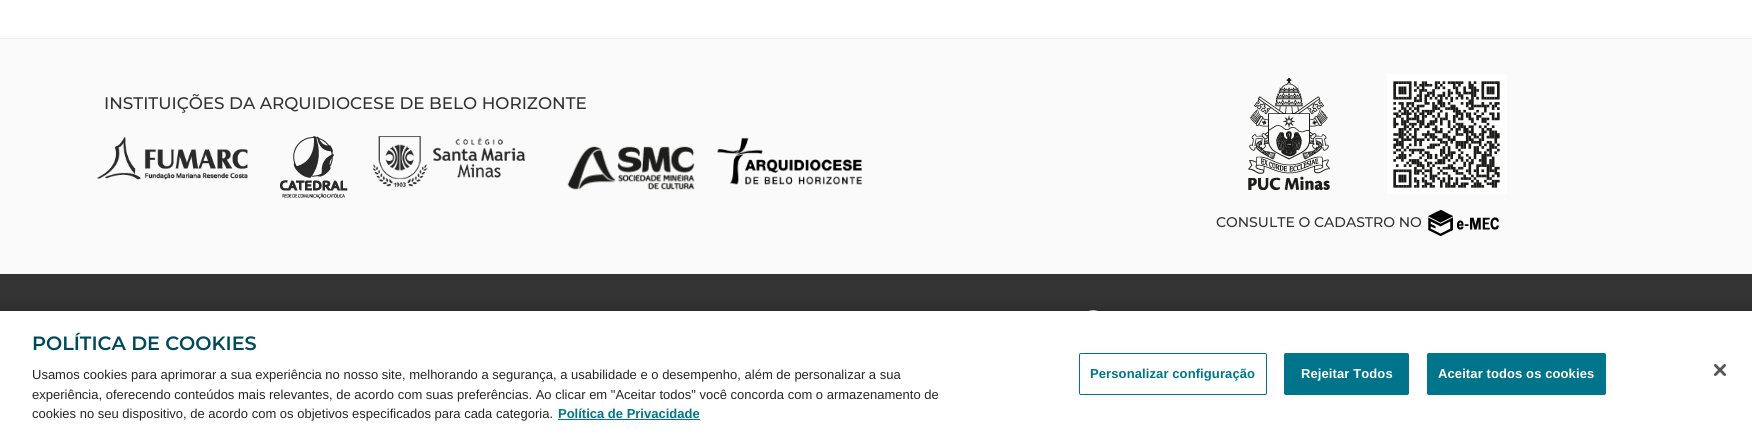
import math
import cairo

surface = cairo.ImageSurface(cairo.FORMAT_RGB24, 1752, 434)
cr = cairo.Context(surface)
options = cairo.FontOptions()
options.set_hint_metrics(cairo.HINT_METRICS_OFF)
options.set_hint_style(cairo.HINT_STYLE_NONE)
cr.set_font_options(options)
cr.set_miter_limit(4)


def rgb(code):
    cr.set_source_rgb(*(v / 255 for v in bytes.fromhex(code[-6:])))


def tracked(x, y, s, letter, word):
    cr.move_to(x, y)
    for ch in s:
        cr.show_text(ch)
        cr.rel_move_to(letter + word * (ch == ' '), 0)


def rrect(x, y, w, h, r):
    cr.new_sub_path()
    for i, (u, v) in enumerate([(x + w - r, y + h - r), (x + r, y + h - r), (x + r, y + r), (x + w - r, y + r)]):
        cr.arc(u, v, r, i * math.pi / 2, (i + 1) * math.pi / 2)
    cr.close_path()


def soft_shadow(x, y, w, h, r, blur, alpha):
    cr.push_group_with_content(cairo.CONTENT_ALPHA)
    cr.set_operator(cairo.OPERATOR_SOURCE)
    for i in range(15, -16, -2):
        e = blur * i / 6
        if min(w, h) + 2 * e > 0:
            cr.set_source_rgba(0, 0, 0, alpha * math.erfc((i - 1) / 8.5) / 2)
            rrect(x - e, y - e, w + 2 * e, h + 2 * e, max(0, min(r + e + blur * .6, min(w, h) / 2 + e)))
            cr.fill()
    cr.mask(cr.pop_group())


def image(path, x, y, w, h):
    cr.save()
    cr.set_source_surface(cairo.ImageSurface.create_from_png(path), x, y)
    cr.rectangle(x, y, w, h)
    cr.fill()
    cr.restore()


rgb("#ffffff")
cr.paint()
rgb("#fafafa")
cr.rectangle(0, 39, 1752, 235)
cr.fill()
rgb("#eeeeee")
cr.rectangle(0, 38, 1752, 1)
cr.fill()
image("img/1.png", 97, 136, 151, 44)
image("img/2.png", 280, 136, 68, 63)
image("img/3.png", 373, 136, 152, 51)
image("img/4.png", 567, 146, 128, 44)
image("img/5.png", 717, 137, 145, 48)
image("img/6.png", 1248, 78, 82, 112)
image("img/7.png", 1387, 74, 120, 120)
image("img/8.png", 1428, 209, 71, 28)
rgb("#333333")
cr.rectangle(0, 274, 1752, 37)
cr.fill()
image("img/9.png", 1089, 310, 9, 1)
rgb("#000000")
soft_shadow(0, 311, 1752, 123, 0, 9, 0.2)
rgb("#ffffff")
cr.rectangle(0, 311, 1752, 123)
cr.fill()
rgb("#00748a")
cr.rectangle(558, 419, 142, 1)
cr.fill()
rrect(1079.5, 353.5, 187, 41, 1.5)
cr.set_line_width(1)
cr.stroke()
rrect(1284.5, 353.5, 124, 41, 1.5)
cr.fill_preserve()
cr.stroke()
rrect(1427.5, 353.5, 178, 41, 1.5)
cr.fill_preserve()
cr.stroke()
image("img/10.png", 1714, 364, 12, 12)
cr.select_font_face("Montserrat Medium")
cr.set_font_size(16.8)
rgb("#333333")
cr.move_to(104, 109)
cr.show_text("INSTITUIÇÕES DA ARQUIDIOCESE DE BELO HORIZONTE")
cr.set_font_size(14)
cr.move_to(1216, 227)
cr.show_text("CONSULTE O CADASTRO NO")
cr.select_font_face("Montserrat SemiBold")
cr.set_font_size(19.25)
rgb("#00485b")
cr.move_to(32, 350)
cr.show_text("POLÍTICA DE COOKIES")
cr.select_font_face("Liberation Sans")
cr.set_font_size(13)
rgb("#252525")
for x, y, s in [
    (32, 379, "Usamos cookies para aprimorar a sua experiência no nosso site, melhorando a segurança, a usabilidade e o desempenho, além de personalizar a sua"),
    (32, 399, "experiência, oferecendo conteúdos mais relevantes, de acordo com suas preferências. Ao clicar em \"Aceitar todos\" você concorda com o armazenamento de"),
    (32, 418, "cookies no seu dispositivo, de acordo com os objetivos especificados para cada categoria."),
]:
    cr.move_to(x, y)
    cr.show_text(s)
cr.select_font_face("Liberation Sans", cairo.FONT_SLANT_NORMAL, cairo.FONT_WEIGHT_BOLD)
rgb("#00748a")
cr.move_to(558, 418)
cr.show_text("Política de Privacidade")
tracked(1090, 378, "Personalizar configuração", 0.1, 0)
rgb("#ffffff")
tracked(1301, 378, "Rejeitar Todos", 0.1, 0)
tracked(1438, 378, "Aceitar todos os cookies", 0.1, 0)
surface.write_to_png("page.png")
